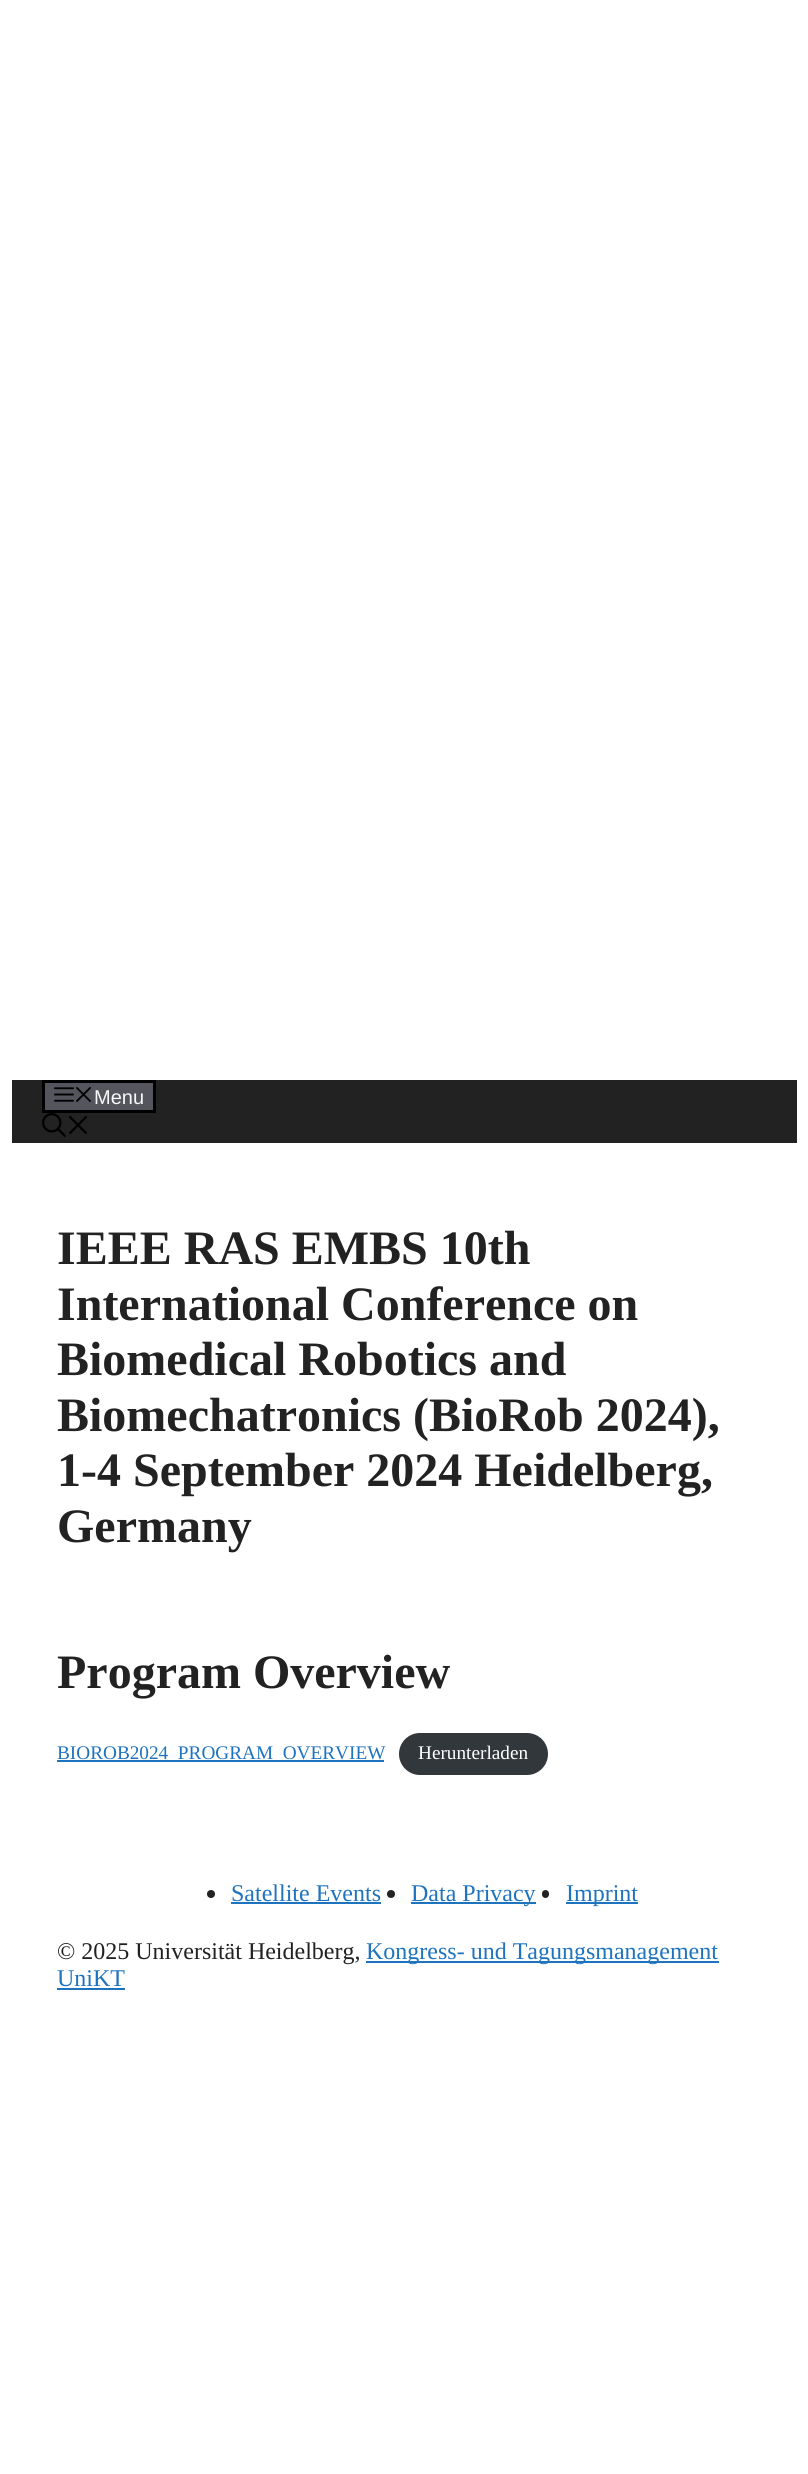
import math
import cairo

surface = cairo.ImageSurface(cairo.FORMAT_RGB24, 808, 2474)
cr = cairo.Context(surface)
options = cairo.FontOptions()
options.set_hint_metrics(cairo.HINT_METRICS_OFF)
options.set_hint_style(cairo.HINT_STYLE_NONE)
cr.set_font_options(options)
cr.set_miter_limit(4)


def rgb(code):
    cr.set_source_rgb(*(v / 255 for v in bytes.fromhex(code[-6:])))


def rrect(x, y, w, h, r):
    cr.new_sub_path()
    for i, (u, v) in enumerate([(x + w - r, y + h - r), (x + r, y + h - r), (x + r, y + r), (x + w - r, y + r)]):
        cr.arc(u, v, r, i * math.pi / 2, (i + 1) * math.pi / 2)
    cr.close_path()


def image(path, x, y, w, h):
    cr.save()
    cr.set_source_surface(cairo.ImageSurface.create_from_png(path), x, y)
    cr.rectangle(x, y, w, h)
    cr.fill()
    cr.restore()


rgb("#ffffff")
cr.paint()
rgb("#222222")
cr.rectangle(12, 1080, 785, 63)
cr.fill()
rgb("#55555e")
cr.rectangle(43.5, 1081.5, 111, 30)
cr.fill_preserve()
rgb("#000000")
cr.set_line_width(3)
cr.stroke()
image("img/1.png", 54, 1087, 20, 15)
image("img/2.png", 76, 1087, 15, 15)
image("img/3.png", 42, 1113, 24, 24)
image("img/4.png", 69, 1116, 18, 18)
rgb("#1e73be")
cr.rectangle(57, 1760, 327, 2)
cr.fill()
rgb("#32373c")
rrect(399, 1733, 149, 42, 21)
cr.fill()
rgb("#222222")
cr.arc(211, 1894, 4, 0, 2 * math.pi)
cr.fill()
rgb("#1e73be")
cr.rectangle(231, 1902, 150, 2)
cr.fill()
rgb("#222222")
cr.arc(391, 1894, 4, 0, 2 * math.pi)
cr.fill()
rgb("#1e73be")
cr.rectangle(411, 1902, 125, 2)
cr.fill()
rgb("#222222")
rrect(542, 1890, 7, 8, 3.5)
cr.fill()
for x, y, w, h, color in [
    (566, 1902, 72, 2, "#1e73be"),
    (366, 1961, 353, 2, "#1e73be"),
    (57, 1988, 68, 2, "#1e73be"),
]:
    rgb(color)
    cr.rectangle(x, y, w, h)
    cr.fill()
cr.select_font_face("Liberation Sans")
cr.set_font_size(20)
rgb("#f7f8f9")
cr.move_to(94, 1104)
cr.show_text("Menu")
cr.select_font_face("Liberation Serif", cairo.FONT_SLANT_NORMAL, cairo.FONT_WEIGHT_BOLD)
cr.set_font_size(48)
rgb("#222222")
for x, y, s in [
    (57, 1264, "IEEE RAS EMBS 10th"),
    (57, 1320, "International Conference on"),
    (57, 1375, "Biomedical Robotics and"),
    (57, 1431, "Biomechatronics (BioRob 2024),"),
    (57, 1486, "1-4 September 2024 Heidelberg,"),
    (57, 1542, "Germany"),
    (57, 1688, "Program Overview"),
]:
    cr.move_to(x, y)
    cr.show_text(s)
cr.select_font_face("Liberation Serif")
cr.set_font_size(19.25)
rgb("#1e73be")
cr.move_to(57, 1759)
cr.show_text("BIOROB2024_PROGRAM_OVERVIEW")
rgb("#ffffff")
cr.move_to(418, 1759)
cr.show_text("Herunterladen")
cr.set_font_size(24)
rgb("#1e73be")
for x, y, s in [
    (231, 1901, "Satellite Events"),
    (411, 1901, "Data Privacy"),
    (566, 1901, "Imprint"),
]:
    cr.move_to(x, y)
    cr.show_text(s)
rgb("#222222")
cr.move_to(57, 1959)
cr.show_text("© 2025 Universität Heidelberg,")
rgb("#1e73be")
cr.move_to(366, 1959)
cr.show_text("Kongress- und Tagungsmanagement")
cr.move_to(57, 1986)
cr.show_text("UniKT")
surface.write_to_png("page.png")
